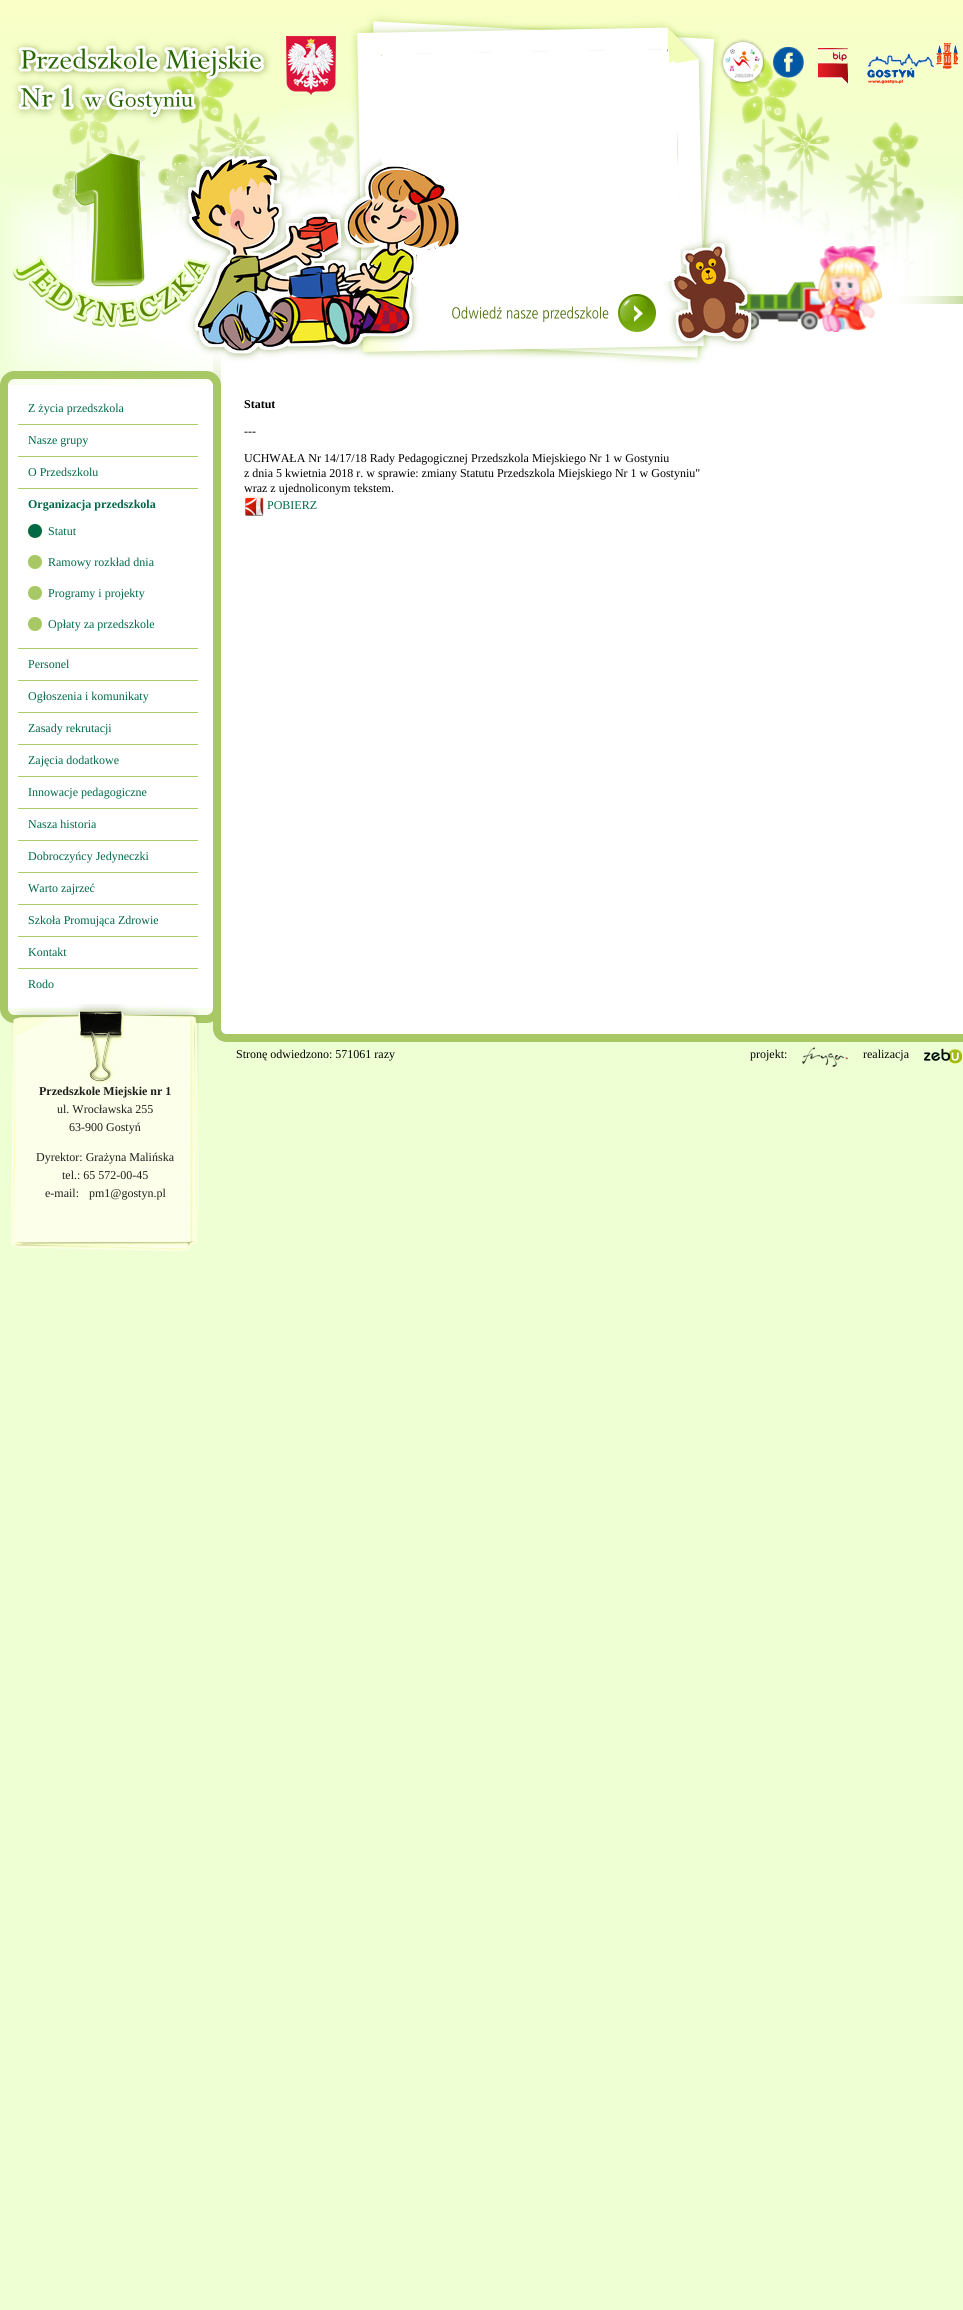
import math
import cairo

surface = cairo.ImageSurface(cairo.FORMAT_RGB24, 963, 2310)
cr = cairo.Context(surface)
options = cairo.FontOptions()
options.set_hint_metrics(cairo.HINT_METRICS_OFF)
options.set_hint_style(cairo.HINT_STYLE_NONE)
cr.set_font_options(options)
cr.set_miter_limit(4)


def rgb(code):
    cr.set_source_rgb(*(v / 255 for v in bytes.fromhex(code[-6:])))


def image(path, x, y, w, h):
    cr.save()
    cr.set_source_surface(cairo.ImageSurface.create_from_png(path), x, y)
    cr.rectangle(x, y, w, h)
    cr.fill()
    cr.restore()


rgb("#eeffd4")
cr.paint()
rgb("#ffffff")
cr.rectangle(379, 49, 303, 237)
cr.fill()
image("img/1.png", 0, 0, 963, 385)
for x, y, w, h, color in [
    (8, 385, 205, 623, "#ffffff"),
    (0, 385, 8, 623, "#a7c865"),
    (18, 424, 180, 1, "#abcb6b"),
    (18, 456, 180, 1, "#abcb6b"),
    (18, 488, 180, 1, "#abcb6b"),
    (18, 648, 180, 1, "#abcb6b"),
]:
    rgb(color)
    cr.rectangle(x, y, w, h)
    cr.fill()
image("img/2.png", 28, 524, 14, 14)
image("img/3.png", 28, 555, 14, 14)
image("img/3.png", 28, 586, 14, 14)
image("img/3.png", 28, 617, 14, 14)
for x, y, w, h, color in [
    (18, 680, 180, 1, "#abcb6b"),
    (18, 712, 180, 1, "#abcb6b"),
    (18, 744, 180, 1, "#abcb6b"),
    (18, 776, 180, 1, "#abcb6b"),
    (18, 808, 180, 1, "#abcb6b"),
    (18, 840, 180, 1, "#abcb6b"),
    (18, 872, 180, 1, "#abcb6b"),
    (18, 904, 180, 1, "#abcb6b"),
    (18, 936, 180, 1, "#abcb6b"),
    (18, 968, 180, 1, "#abcb6b"),
]:
    rgb(color)
    cr.rectangle(x, y, w, h)
    cr.fill()
image("img/4.png", 0, 1008, 213, 15)
image("img/5.png", 11, 1004, 188, 247)
rgb("#ffffff")
cr.rectangle(221, 385, 742, 645)
cr.fill()
rgb("#a7c865")
cr.rectangle(213, 385, 8, 649)
cr.fill()
image("img/6.png", 244, 496, 20, 20)
image("img/7.png", 213, 1030, 750, 12)
image("img/8.png", 802, 1047, 46, 21)
image("img/9.png", 924, 1048, 38, 16)
cr.select_font_face("Liberation Serif")
cr.set_font_size(12)
rgb("#006946")
for x, y, s in [
    (28, 412, "Z życia przedszkola"),
    (28, 444, "Nasze grupy"),
    (28, 476, "O Przedszkolu"),
]:
    cr.move_to(x, y)
    cr.show_text(s)
cr.select_font_face("Liberation Serif", cairo.FONT_SLANT_NORMAL, cairo.FONT_WEIGHT_BOLD)
cr.move_to(28, 508)
cr.show_text("Organizacja przedszkola")
cr.select_font_face("Liberation Serif")
for x, y, s in [
    (48, 535, "Statut"),
    (48, 566, "Ramowy rozkład dnia"),
    (48, 597, "Programy i projekty"),
    (48, 628, "Opłaty za przedszkole"),
    (28, 668, "Personel"),
    (28, 700, "Ogłoszenia i komunikaty"),
    (28, 732, "Zasady rekrutacji"),
    (28, 764, "Zajęcia dodatkowe"),
    (28, 796, "Innowacje pedagogiczne"),
    (28, 828, "Nasza historia"),
    (28, 860, "Dobroczyńcy Jedyneczki"),
    (28, 892, "Warto zajrzeć"),
    (28, 924, "Szkoła Promująca Zdrowie"),
    (28, 956, "Kontakt"),
    (28, 988, "Rodo"),
]:
    cr.move_to(x, y)
    cr.show_text(s)
cr.select_font_face("Liberation Serif", cairo.FONT_SLANT_NORMAL, cairo.FONT_WEIGHT_BOLD)
rgb("#1e1e1c")
cr.move_to(39, 1095)
cr.show_text("Przedszkole Miejskie nr 1")
cr.select_font_face("Liberation Serif")
for x, y, s in [
    (57, 1113, "ul. Wrocławska 255"),
    (69, 1131, "63-900 Gostyń"),
    (36, 1161, "Dyrektor: Grażyna Malińska"),
    (62, 1179, "tel.: 65 572-00-45"),
    (45, 1197, "e-mail:"),
    (89, 1197, "pm1@gostyn.pl"),
]:
    cr.move_to(x, y)
    cr.show_text(s)
cr.select_font_face("Liberation Serif", cairo.FONT_SLANT_NORMAL, cairo.FONT_WEIGHT_BOLD)
rgb("#000000")
cr.move_to(244, 408)
cr.show_text("Statut")
cr.select_font_face("Liberation Serif")
for x, y, s in [
    (244, 435, "---"),
    (244, 462, "UCHWAŁA Nr 14/17/18 Rady Pedagogicznej Przedszkola Miejskiego Nr 1 w Gostyniu"),
    (244, 477, "z dnia 5 kwietnia 2018 r. w sprawie: zmiany Statutu Przedszkola Miejskiego Nr 1 w Gostyniu\""),
    (244, 492, "wraz z ujednoliconym tekstem."),
]:
    cr.move_to(x, y)
    cr.show_text(s)
rgb("#006946")
cr.move_to(267, 509)
cr.show_text("POBIERZ")
rgb("#000000")
for x, y, s in [
    (236, 1058, "Stronę odwiedzono: 571061 razy"),
    (750, 1058, "projekt:"),
    (863, 1058, "realizacja"),
]:
    cr.move_to(x, y)
    cr.show_text(s)
surface.write_to_png("page.png")
